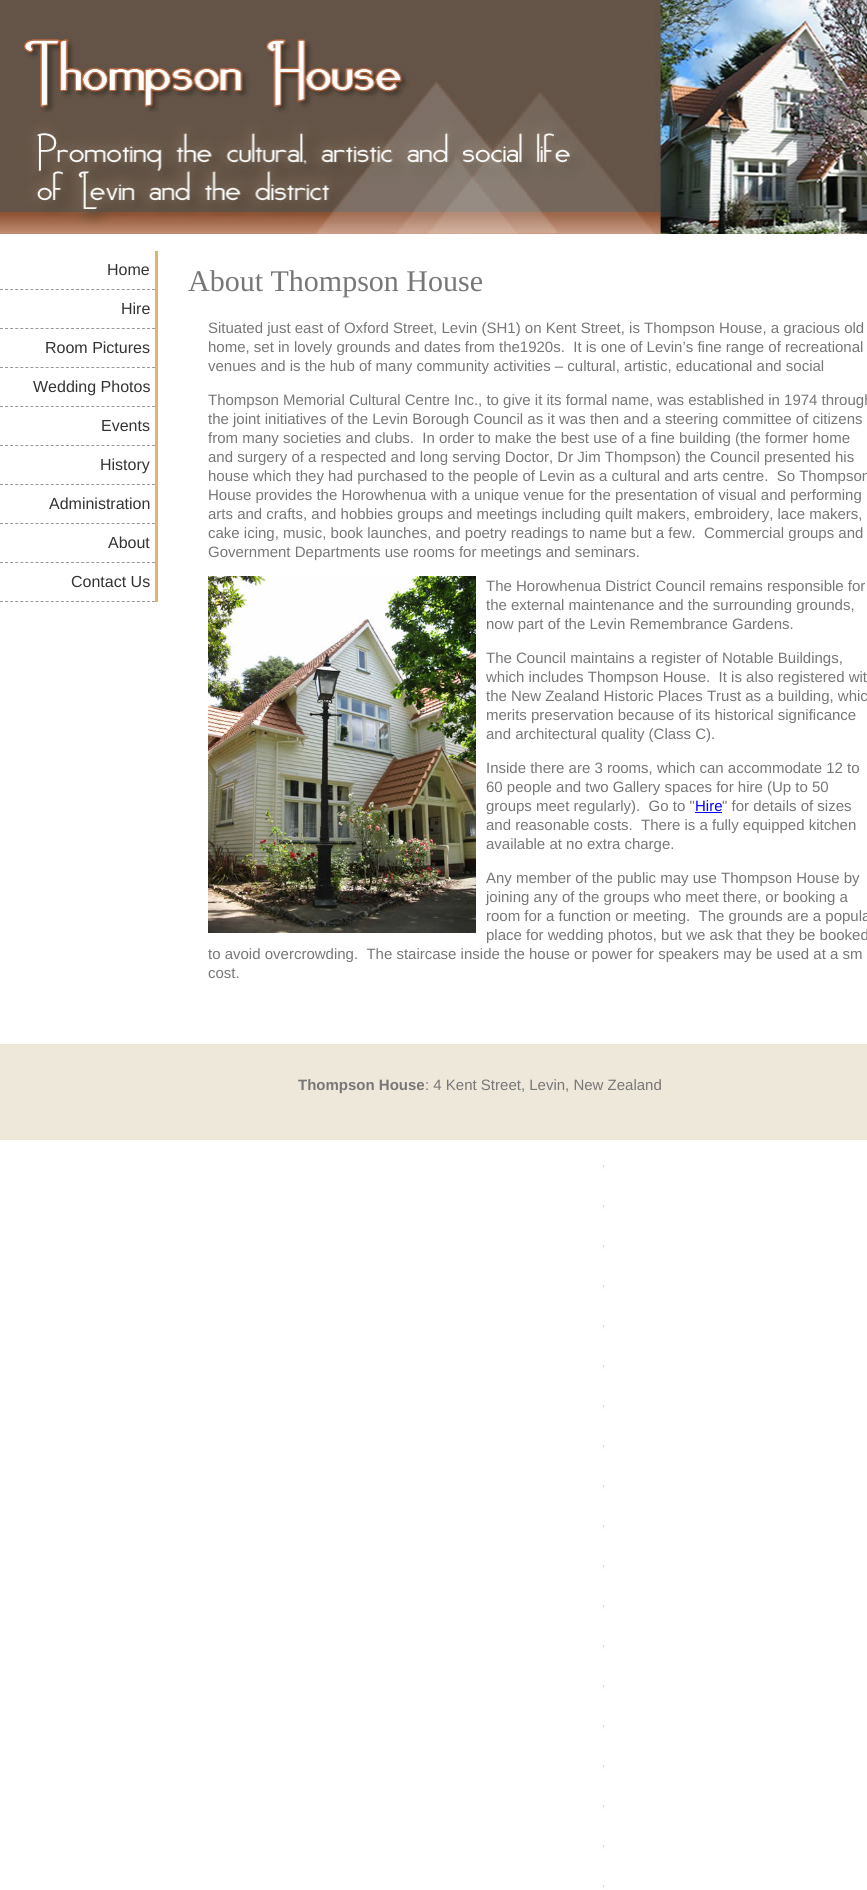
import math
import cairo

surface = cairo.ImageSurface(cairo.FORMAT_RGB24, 867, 1890)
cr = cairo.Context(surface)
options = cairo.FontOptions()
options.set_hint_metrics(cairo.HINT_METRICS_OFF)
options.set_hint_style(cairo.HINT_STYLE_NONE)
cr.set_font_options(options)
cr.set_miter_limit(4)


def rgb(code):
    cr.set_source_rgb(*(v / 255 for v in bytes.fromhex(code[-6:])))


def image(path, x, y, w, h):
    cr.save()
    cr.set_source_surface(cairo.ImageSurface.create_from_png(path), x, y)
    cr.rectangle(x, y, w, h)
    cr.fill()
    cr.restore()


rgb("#ffffff")
cr.paint()
image("img/1.png", 601, 1140, 8, 750)
image("img/2.png", 0, 0, 867, 234)
rgb("#dcb66f")
cr.rectangle(155, 251, 3, 351)
cr.fill()
cr.new_path()
cr.move_to(0, 289.5)
cr.line_to(155, 289.5)
rgb("#999999")
cr.set_line_width(1)
cr.set_dash([3, 2.07])
cr.stroke()
cr.new_path()
cr.move_to(0, 328.5)
cr.line_to(155, 328.5)
cr.stroke()
cr.new_path()
cr.move_to(0, 367.5)
cr.line_to(155, 367.5)
cr.stroke()
cr.new_path()
cr.move_to(0, 406.5)
cr.line_to(155, 406.5)
cr.stroke()
cr.new_path()
cr.move_to(0, 445.5)
cr.line_to(155, 445.5)
cr.stroke()
cr.new_path()
cr.move_to(0, 484.5)
cr.line_to(155, 484.5)
cr.stroke()
cr.new_path()
cr.move_to(0, 523.5)
cr.line_to(155, 523.5)
cr.stroke()
cr.new_path()
cr.move_to(0, 562.5)
cr.line_to(155, 562.5)
cr.stroke()
cr.new_path()
cr.move_to(0, 601.5)
cr.line_to(155, 601.5)
cr.stroke()
image("img/3.png", 208, 576, 268, 357)
rgb("#0000ff")
cr.rectangle(695, 812, 27, 1)
cr.fill()
rgb("#eee8da")
cr.rectangle(0, 1044, 867, 96)
cr.fill()
cr.select_font_face("Liberation Sans")
cr.set_font_size(16)
rgb("#333333")
for x, y, s in [
    (107, 275, "Home"),
    (121, 314, "Hire"),
    (45, 353, "Room Pictures"),
    (33, 392, "Wedding Photos"),
    (101, 431, "Events"),
    (100, 470, "History"),
    (49, 509, "Administration"),
    (108, 548, "About"),
    (71, 587, "Contact Us"),
]:
    cr.move_to(x, y)
    cr.show_text(s)
cr.select_font_face("Liberation Serif")
cr.set_font_size(30)
rgb("#777777")
cr.move_to(188, 291)
cr.show_text("About Thompson House")
cr.select_font_face("Liberation Sans")
cr.set_font_size(15)
for x, y, s in [
    (208, 333, "Situated just east of Oxford Street, Levin (SH1) on Kent Street, is Thompson House, a gracious old"),
    (208, 352, "home, set in lovely grounds and dates from the1920s.  It is one of Levin’s fine range of recreational"),
    (208, 371, "venues and is the hub of many community activities – cultural, artistic, educational and social"),
    (208, 405, "Thompson Memorial Cultural Centre Inc., to give it its formal name, was established in 1974 through"),
    (208, 424, "the joint initiatives of the Levin Borough Council as it was then and a steering committee of citizens"),
    (208, 443, "from many societies and clubs.  In order to make the best use of a fine building (the former home"),
    (208, 462, "and surgery of a respected and long serving Doctor, Dr Jim Thompson) the Council presented his"),
    (208, 481, "house which they had purchased to the people of Levin as a cultural and arts centre.  So Thompson"),
    (208, 500, "House provides the Horowhenua with a unique venue for the presentation of visual and performing"),
    (208, 519, "arts and crafts, and hobbies groups and meetings including quilt makers, embroidery, lace makers,"),
    (208, 538, "cake icing, music, book launches, and poetry readings to name but a few.  Commercial groups and"),
    (208, 557, "Government Departments use rooms for meetings and seminars."),
    (486, 591, "The Horowhenua District Council remains responsible for"),
    (486, 610, "the external maintenance and the surrounding grounds,"),
    (486, 629, "now part of the Levin Remembrance Gardens."),
    (486, 663, "The Council maintains a register of Notable Buildings,"),
    (486, 682, "which includes Thompson House.  It is also registered wit"),
    (486, 701, "the New Zealand Historic Places Trust as a building, whic"),
    (486, 720, "merits preservation because of its historical significance"),
    (486, 739, "and architectural quality (Class C)."),
    (486, 773, "Inside there are 3 rooms, which can accommodate 12 to"),
    (486, 792, "60 people and two Gallery spaces for hire (Up to 50"),
    (486, 811, "groups meet regularly).  Go to \""),
]:
    cr.move_to(x, y)
    cr.show_text(s)
rgb("#0000ff")
cr.move_to(695, 811)
cr.show_text("Hire")
rgb("#777777")
for x, y, s in [
    (722, 811, "\" for details of sizes"),
    (486, 830, "and reasonable costs.  There is a fully equipped kitchen"),
    (486, 849, "available at no extra charge."),
    (486, 883, "Any member of the public may use Thompson House by"),
    (486, 902, "joining any of the groups who meet there, or booking a"),
    (486, 921, "room for a function or meeting.  The grounds are a popula"),
    (486, 940, "place for wedding photos, but we ask that they be booked"),
    (208, 959, "to avoid overcrowding.  The staircase inside the house or power for speakers may be used at a sm"),
    (208, 978, "cost."),
]:
    cr.move_to(x, y)
    cr.show_text(s)
cr.select_font_face("Liberation Sans", cairo.FONT_SLANT_NORMAL, cairo.FONT_WEIGHT_BOLD)
cr.move_to(298, 1090)
cr.show_text("Thompson House")
cr.select_font_face("Liberation Sans")
cr.move_to(425, 1090)
cr.show_text(": 4 Kent Street, Levin, New Zealand")
surface.write_to_png("page.png")
